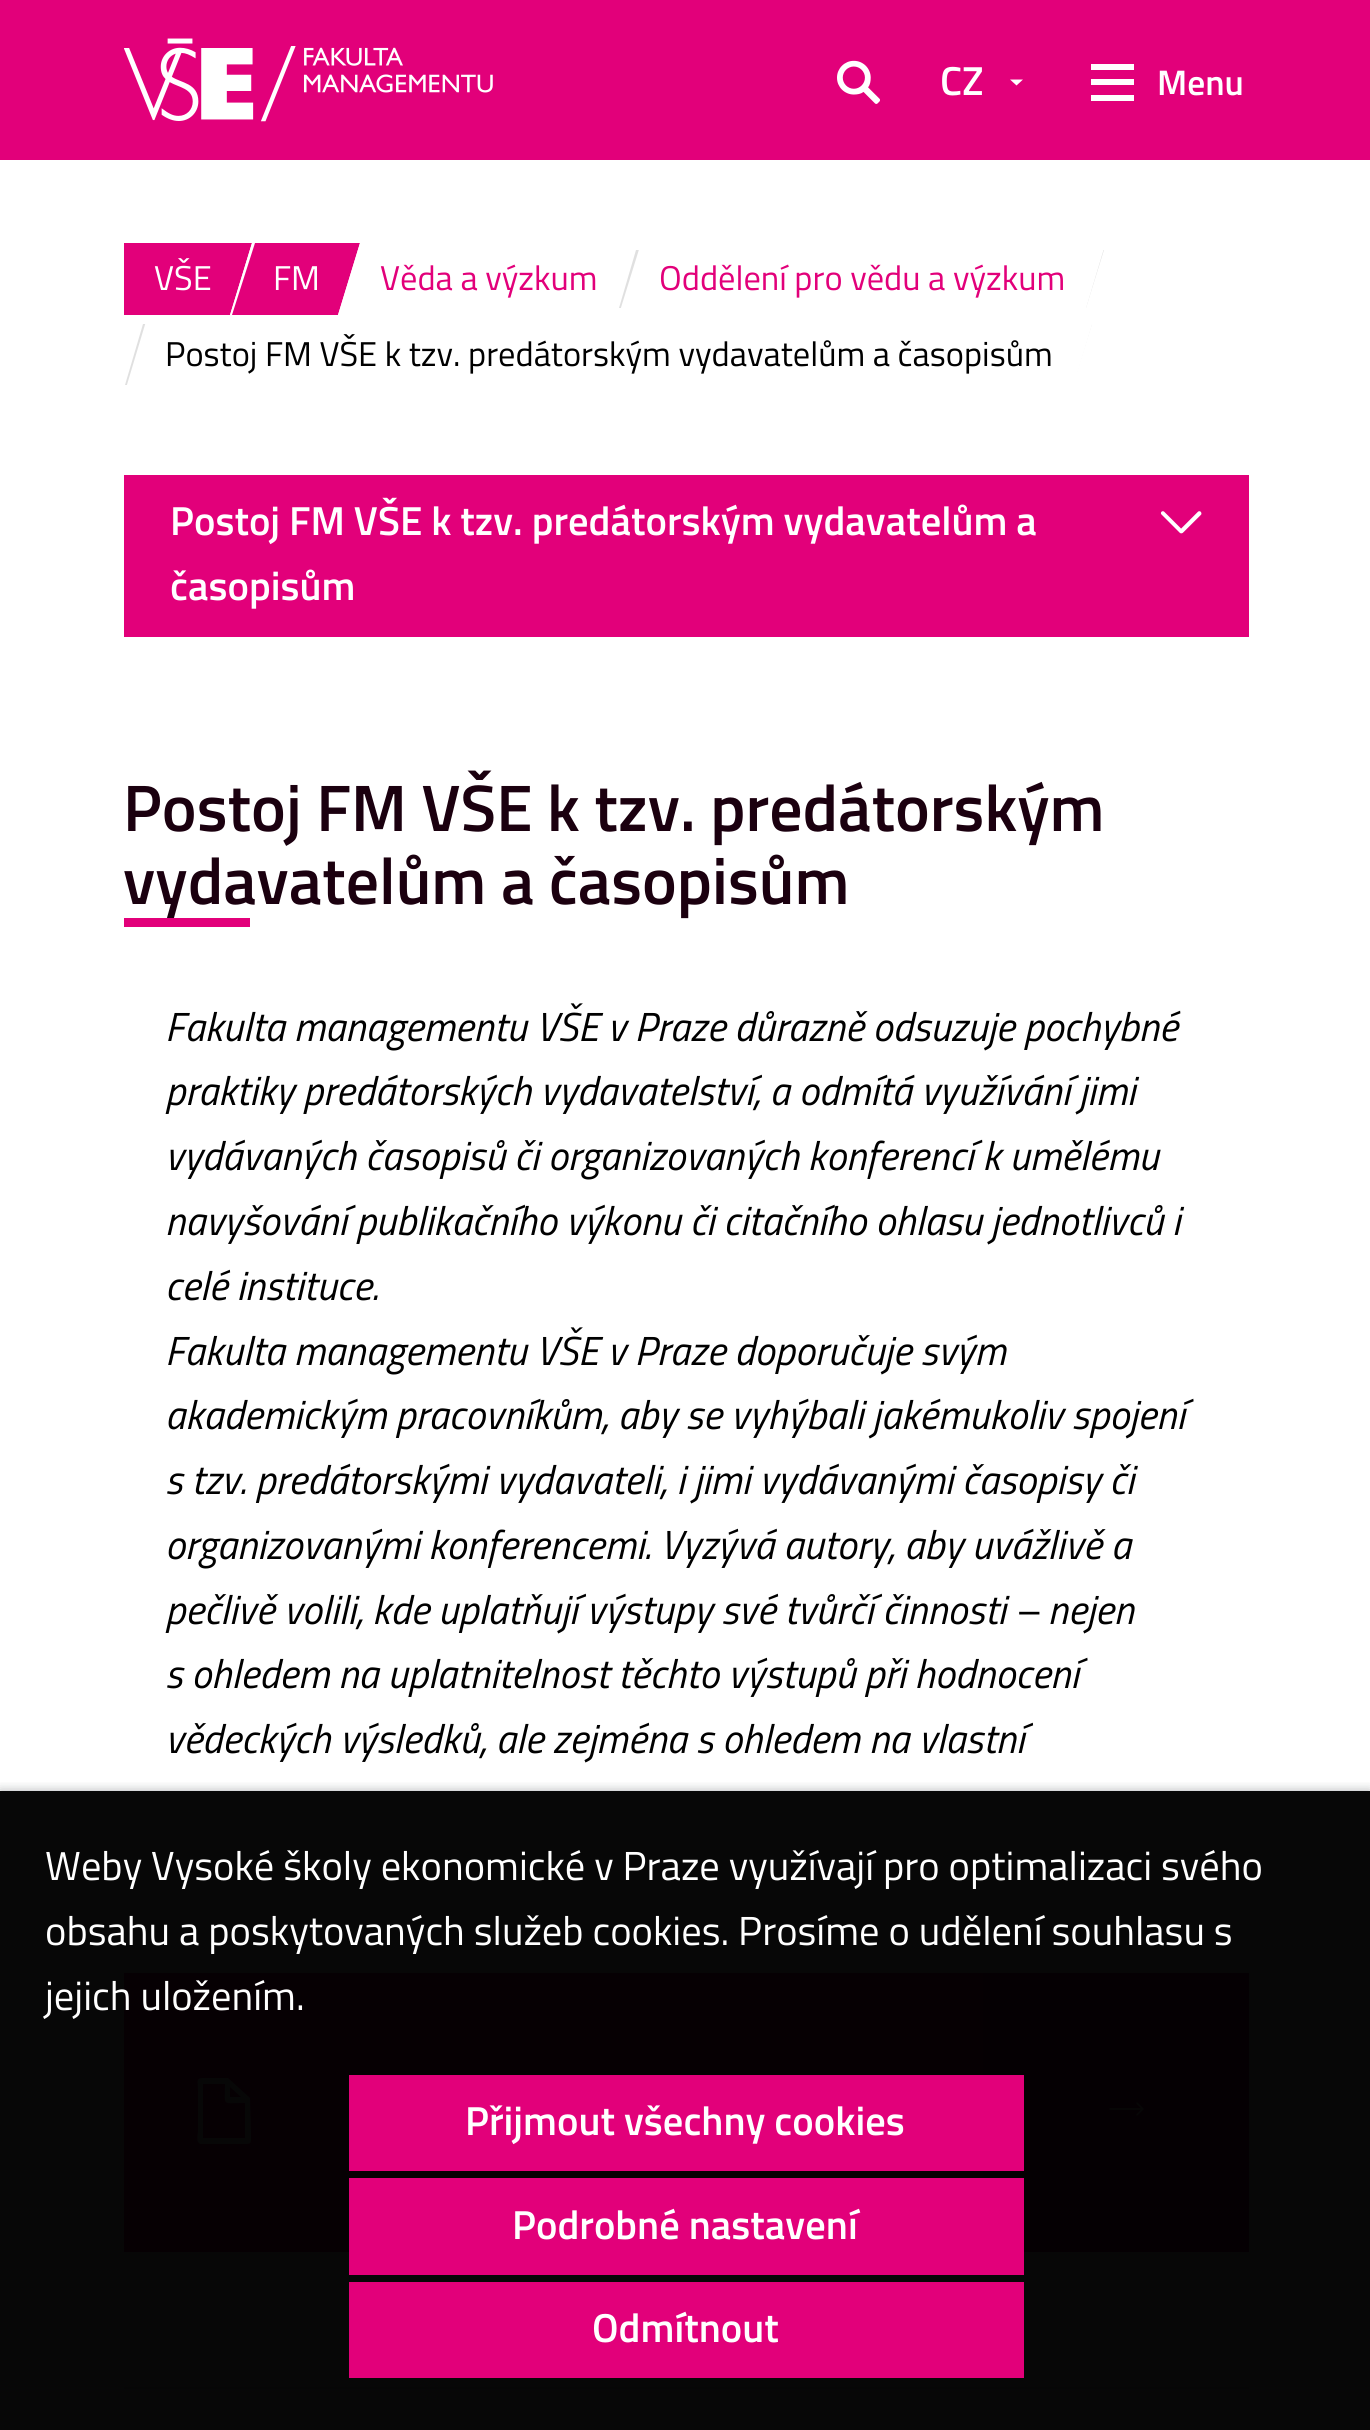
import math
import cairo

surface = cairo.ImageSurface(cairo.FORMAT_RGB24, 1370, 2430)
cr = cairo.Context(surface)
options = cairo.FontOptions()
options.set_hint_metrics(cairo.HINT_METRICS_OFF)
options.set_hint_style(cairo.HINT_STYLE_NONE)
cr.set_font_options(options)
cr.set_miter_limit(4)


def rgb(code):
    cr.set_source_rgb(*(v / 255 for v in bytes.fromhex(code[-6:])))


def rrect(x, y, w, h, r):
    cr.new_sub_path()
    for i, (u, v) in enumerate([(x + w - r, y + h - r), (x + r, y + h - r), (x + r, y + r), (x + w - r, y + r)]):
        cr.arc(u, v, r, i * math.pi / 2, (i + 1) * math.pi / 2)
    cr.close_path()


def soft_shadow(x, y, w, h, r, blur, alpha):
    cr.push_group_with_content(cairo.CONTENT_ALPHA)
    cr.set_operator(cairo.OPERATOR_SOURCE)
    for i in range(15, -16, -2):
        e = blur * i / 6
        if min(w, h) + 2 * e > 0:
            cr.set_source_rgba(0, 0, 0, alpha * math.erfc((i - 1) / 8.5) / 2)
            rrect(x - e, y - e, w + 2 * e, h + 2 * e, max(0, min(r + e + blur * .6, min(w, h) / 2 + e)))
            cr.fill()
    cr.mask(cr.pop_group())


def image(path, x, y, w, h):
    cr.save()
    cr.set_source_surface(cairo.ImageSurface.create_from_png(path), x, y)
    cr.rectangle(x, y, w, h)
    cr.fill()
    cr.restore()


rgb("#ffffff")
cr.paint()
rgb("#e2007a")
cr.rectangle(0, 0, 1370, 160)
cr.fill()
image("img/1.png", 124, 38, 369, 84)
image("img/2.png", 837, 60, 43, 44)
rgb("#ffffff")
cr.new_path()
cr.move_to(1010, 79.5)
cr.line_to(1023, 79.5)
cr.line_to(1016.5, 85.5)
cr.close_path()
cr.fill()
cr.new_path()
cr.move_to(1091, 85)
cr.line_to(1134, 85)
cr.line_to(1134, 79)
cr.line_to(1091, 79)
cr.close_path()
cr.move_to(1091, 70)
cr.line_to(1134, 70)
cr.line_to(1134, 64)
cr.line_to(1091, 64)
cr.close_path()
cr.move_to(1091, 101)
cr.line_to(1134, 101)
cr.line_to(1134, 95)
cr.line_to(1091, 95)
cr.close_path()
cr.fill()
rgb("#e2007a")
cr.new_path()
cr.move_to(124, 243)
cr.line_to(124, 315)
cr.line_to(230, 315)
cr.line_to(252, 243)
cr.close_path()
cr.fill()
rgb("#ffffff")
cr.new_path()
cr.move_to(252, 243)
cr.line_to(230, 315)
cr.line_to(338, 315)
cr.line_to(360, 243)
cr.close_path()
cr.fill()
rgb("#e2007a")
cr.new_path()
cr.move_to(255, 243)
cr.line_to(232, 315)
cr.line_to(338, 315)
cr.line_to(360, 243)
cr.close_path()
cr.fill()
rgb("#ffffff")
cr.new_path()
cr.move_to(360, 243)
cr.line_to(338, 315)
cr.line_to(616, 315)
cr.line_to(639, 243)
cr.close_path()
cr.fill()
rgb("#e0e0e0")
cr.new_path()
cr.move_to(619, 308)
cr.line_to(636, 250)
cr.line_to(1104, 250)
cr.line_to(1086, 308)
cr.close_path()
cr.fill()
rgb("#ffffff")
cr.new_path()
cr.move_to(641, 243)
cr.line_to(619, 314)
cr.line_to(619, 315)
cr.line_to(1084, 315)
cr.line_to(1105, 245)
cr.line_to(1105, 243)
cr.close_path()
cr.fill()
rgb("#e0e0e0")
cr.new_path()
cr.move_to(125, 385)
cr.line_to(143, 324)
cr.line_to(1092, 324)
cr.line_to(1073, 385)
cr.close_path()
cr.fill()
rgb("#ffffff")
cr.new_path()
cr.move_to(147, 318)
cr.line_to(126, 388)
cr.line_to(126, 391)
cr.line_to(1072, 391)
cr.line_to(1094, 318)
cr.close_path()
cr.fill()
rgb("#e2007a")
cr.rectangle(124, 475, 1125, 162)
cr.fill()
image("img/3.png", 1160, 511, 42, 23)
cr.rectangle(124, 1973, 859, 279)
cr.fill()
rgb("#ffffff")
cr.new_path()
cr.move_to(200, 2144)
cr.line_to(240, 2144)
cr.curve_to(252, 2144, 251, 2145, 251, 2134)
cr.line_to(250, 2098)
cr.line_to(228, 2078)
cr.line_to(205, 2078)
cr.curve_to(195, 2078, 198, 2080, 198, 2091)
cr.line_to(198, 2131)
cr.curve_to(198, 2132, 196, 2141, 199, 2143)
cr.close_path()
cr.move_to(230, 2087)
cr.line_to(241, 2097)
cr.line_to(230, 2097)
cr.close_path()
cr.move_to(203, 2084)
cr.line_to(225, 2084)
cr.curve_to(225, 2107, 221, 2103, 245, 2103)
cr.line_to(245, 2138)
cr.line_to(203, 2138)
cr.close_path()
cr.fill()
rgb("#c80061")
cr.rectangle(983, 1973, 266, 279)
cr.fill()
image("img/4.png", 1109, 2102, 35, 14)
rgb("#dee2e6")
cr.rectangle(124, 2387, 1125, 2)
cr.fill()
cr.save()
cr.rectangle(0, 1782, 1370, 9)
cr.clip()
rgb("#343a40")
soft_shadow(0, 1791, 1370, 639, 0, 5.5, 0.4)
cr.restore()
cr.set_source_rgba(0, 0, 0, 0.97)
cr.rectangle(0, 1791, 1370, 639)
cr.fill()
rgb("#e2007a")
cr.rectangle(349, 2075, 675, 96)
cr.rectangle(349, 2178, 675, 97)
cr.rectangle(349, 2282, 675, 96)
cr.fill()
cr.select_font_face("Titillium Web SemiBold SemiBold")
cr.set_font_size(40.5)
rgb("#ffffff")
cr.move_to(940, 95)
cr.show_text("CZ")
cr.set_font_size(35.5)
cr.move_to(1157, 95)
cr.show_text("Menu")
cr.select_font_face("Titillium Web")
cr.set_font_size(34.4)
cr.move_to(154, 290)
cr.show_text("VŠE")
cr.move_to(273, 290)
cr.show_text("FM")
rgb("#e2007a")
cr.move_to(380, 290)
cr.show_text("Věda a výzkum")
cr.move_to(659, 290)
cr.show_text("Oddělení pro vědu a výzkum")
rgb("#000000")
cr.move_to(165, 366)
cr.show_text("Postoj FM VŠE k tzv. predátorským vydavatelům a časopisům")
cr.select_font_face("Titillium Web SemiBold SemiBold")
cr.set_font_size(40.5)
rgb("#ffffff")
cr.move_to(170, 535)
cr.show_text("Postoj FM VŠE k tzv. predátorským vydavatelům a")
cr.move_to(170, 600)
cr.show_text("časopisům")
cr.set_font_size(65.75)
rgb("#1b000f")
cr.move_to(123, 831)
cr.show_text("Postoj FM VŠE k tzv. predátorským")
cr.move_to(123, 904)
cr.show_text("vydavatelům a časopisům")
rgb("#e2007a")
cr.rectangle(124, 918, 126, 9)
cr.fill()
cr.select_font_face("Titillium Web", cairo.FONT_SLANT_ITALIC)
cr.set_font_size(40.5)
rgb("#000000")
for x, y, s in [
    (165, 1041, "Fakulta managementu VŠE v Praze důrazně odsuzuje pochybné"),
    (165, 1105, "praktiky predátorských vydavatelství, a odmítá využívání jimi"),
    (165, 1170, "vydávaných časopisů či organizovaných konferencí k umělému"),
    (165, 1235, "navyšování publikačního výkonu či citačního ohlasu jednotlivců i"),
    (165, 1300, "celé instituce."),
    (165, 1365, "Fakulta managementu VŠE v Praze doporučuje svým"),
    (165, 1429, "akademickým pracovníkům, aby se vyhýbali jakémukoliv spojení"),
    (165, 1494, "s tzv. predátorskými vydavateli, i jimi vydávanými časopisy či"),
    (165, 1559, "organizovanými konferencemi. Vyzývá autory, aby uvážlivě a"),
    (165, 1624, "pečlivě volili, kde uplatňují výstupy své tvůrčí činnosti – nejen"),
    (165, 1688, "s ohledem na uplatnitelnost těchto výstupů při hodnocení"),
    (165, 1753, "vědeckých výsledků, ale zejména s ohledem na vlastní"),
]:
    cr.move_to(x, y)
    cr.show_text(s)
cr.select_font_face("Titillium Web")
rgb("#ffffff")
for x, y, s in [
    (45, 1880, "Weby Vysoké školy ekonomické v Praze využívají pro optimalizaci svého"),
    (45, 1945, "obsahu a poskytovaných služeb cookies. Prosíme o udělení souhlasu s"),
    (45, 2010, "jejich uložením."),
]:
    cr.move_to(x, y)
    cr.show_text(s)
cr.select_font_face("Titillium Web SemiBold SemiBold")
for x, y, s in [
    (465, 2135, "Přijmout všechny cookies"),
    (512, 2239, "Podrobné nastavení"),
    (592, 2342, "Odmítnout"),
]:
    cr.move_to(x, y)
    cr.show_text(s)
surface.write_to_png("page.png")
